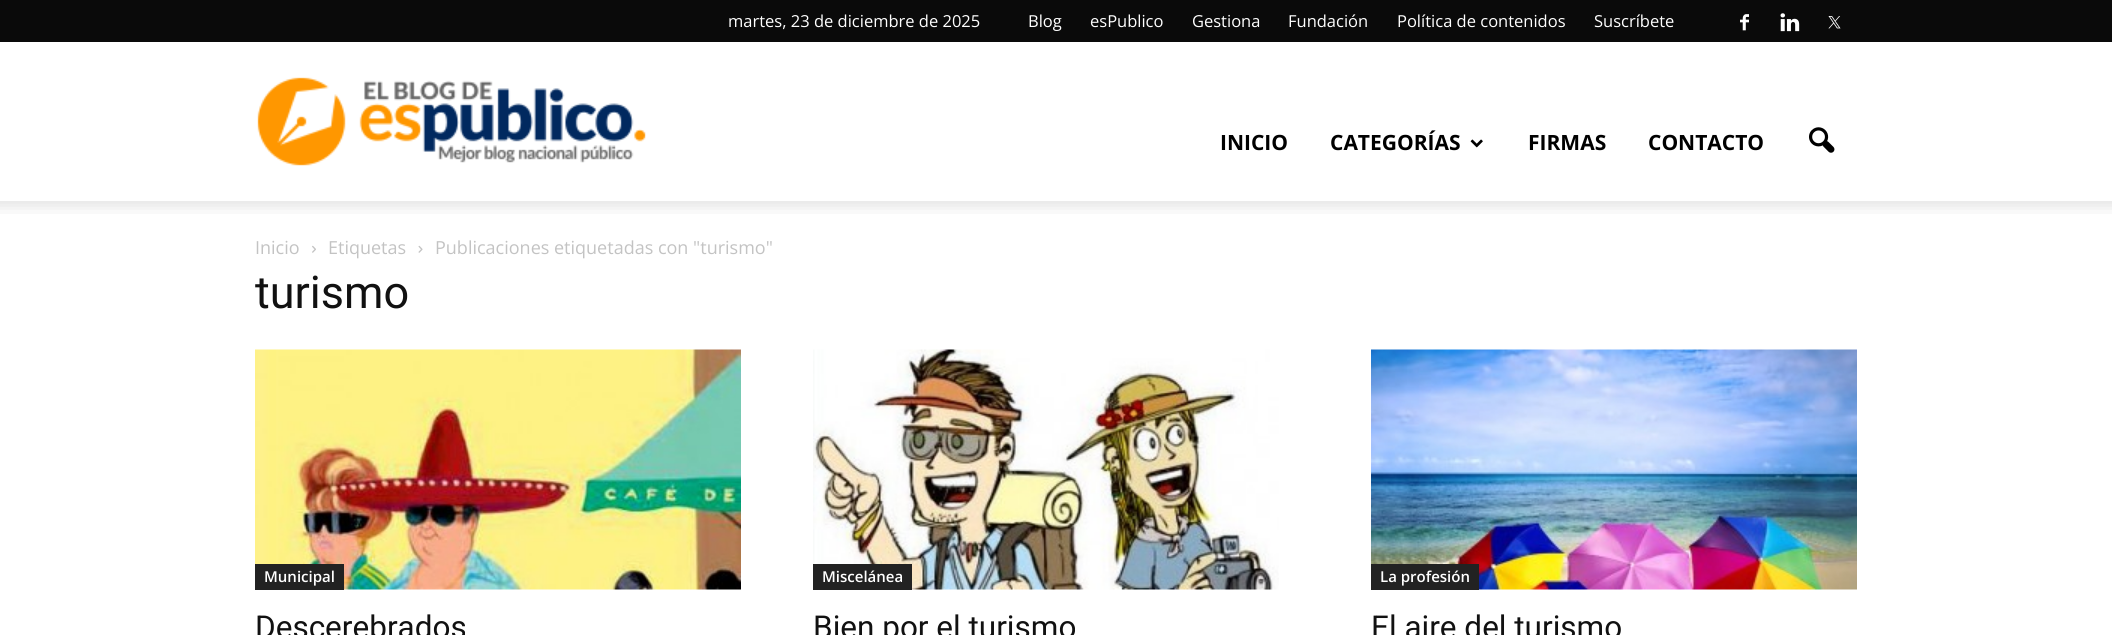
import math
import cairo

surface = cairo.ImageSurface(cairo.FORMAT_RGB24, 2112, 635)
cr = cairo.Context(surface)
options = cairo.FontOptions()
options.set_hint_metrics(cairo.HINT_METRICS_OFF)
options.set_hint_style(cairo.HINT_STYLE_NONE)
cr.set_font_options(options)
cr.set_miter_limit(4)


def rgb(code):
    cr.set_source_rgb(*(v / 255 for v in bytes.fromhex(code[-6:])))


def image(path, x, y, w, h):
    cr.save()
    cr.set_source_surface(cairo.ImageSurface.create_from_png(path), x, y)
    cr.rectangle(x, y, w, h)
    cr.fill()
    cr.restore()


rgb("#ffffff")
cr.paint()
rgb("#0a0a0a")
cr.rectangle(0, 0, 2112, 42)
cr.fill()
image("img/1.png", 1740, 14, 9, 17)
image("img/2.png", 1780, 13, 20, 19)
image("img/3.png", 1828, 16, 13, 13)
image("img/4.png", 257, 77, 389, 89)
image("img/5.png", 1470, 139, 13, 9)
image("img/6.png", 1809, 127, 26, 26)
image("img/7.png", 0, 201, 2112, 13)
image("img/8.png", 312, 245, 4, 8)
image("img/9.png", 418, 245, 5, 8)
image("img/10.png", 255, 349, 486, 241)
rgb("#222222")
cr.rectangle(255, 564, 89, 26)
cr.fill()
image("img/11.png", 813, 349, 466, 241)
cr.rectangle(813, 564, 99, 26)
cr.fill()
image("img/12.png", 1371, 349, 486, 241)
cr.rectangle(1371, 564, 108, 26)
cr.fill()
cr.select_font_face("Open Sans")
cr.set_font_size(16.5)
rgb("#ffffff")
for x, y, s in [
    (728, 27, "martes, 23 de diciembre de 2025"),
    (1028, 27, "Blog"),
    (1090, 27, "esPublico"),
    (1192, 27, "Gestiona"),
    (1288, 27, "Fundación"),
    (1397, 27, "Política de contenidos"),
    (1594, 27, "Suscríbete"),
]:
    cr.move_to(x, y)
    cr.show_text(s)
cr.select_font_face("Open Sans", cairo.FONT_SLANT_NORMAL, cairo.FONT_WEIGHT_BOLD)
cr.set_font_size(21)
rgb("#000000")
for x, y, s in [
    (1220, 150, "INICIO"),
    (1330, 150, "CATEGORÍAS"),
    (1528, 150, "FIRMAS"),
    (1648, 150, "CONTACTO"),
]:
    cr.move_to(x, y)
    cr.show_text(s)
cr.select_font_face("Open Sans")
cr.set_font_size(18)
rgb("#c3c3c3")
for x, y, s in [
    (255, 254, "Inicio"),
    (328, 254, "Etiquetas"),
    (435, 254, "Publicaciones etiquetadas con \"turismo\""),
]:
    cr.move_to(x, y)
    cr.show_text(s)
cr.select_font_face("Roboto")
cr.set_font_size(45)
rgb("#111111")
cr.move_to(255, 308)
cr.show_text("turismo")
cr.select_font_face("Open Sans SemiBold")
cr.set_font_size(15)
rgb("#ffffff")
cr.move_to(264, 582)
cr.show_text("Municipal")
cr.select_font_face("Roboto")
cr.set_font_size(31.5)
rgb("#111111")
cr.move_to(255, 638)
cr.show_text("Descerebrados")
cr.select_font_face("Open Sans SemiBold")
cr.set_font_size(15)
rgb("#ffffff")
cr.move_to(822, 582)
cr.show_text("Miscelánea")
cr.select_font_face("Roboto")
cr.set_font_size(31.5)
rgb("#111111")
cr.move_to(813, 638)
cr.show_text("Bien por el turismo")
cr.select_font_face("Open Sans SemiBold")
cr.set_font_size(15)
rgb("#ffffff")
cr.move_to(1380, 582)
cr.show_text("La profesión")
cr.select_font_face("Roboto")
cr.set_font_size(31.5)
rgb("#111111")
cr.move_to(1371, 638)
cr.show_text("El aire del turismo")
surface.write_to_png("page.png")
